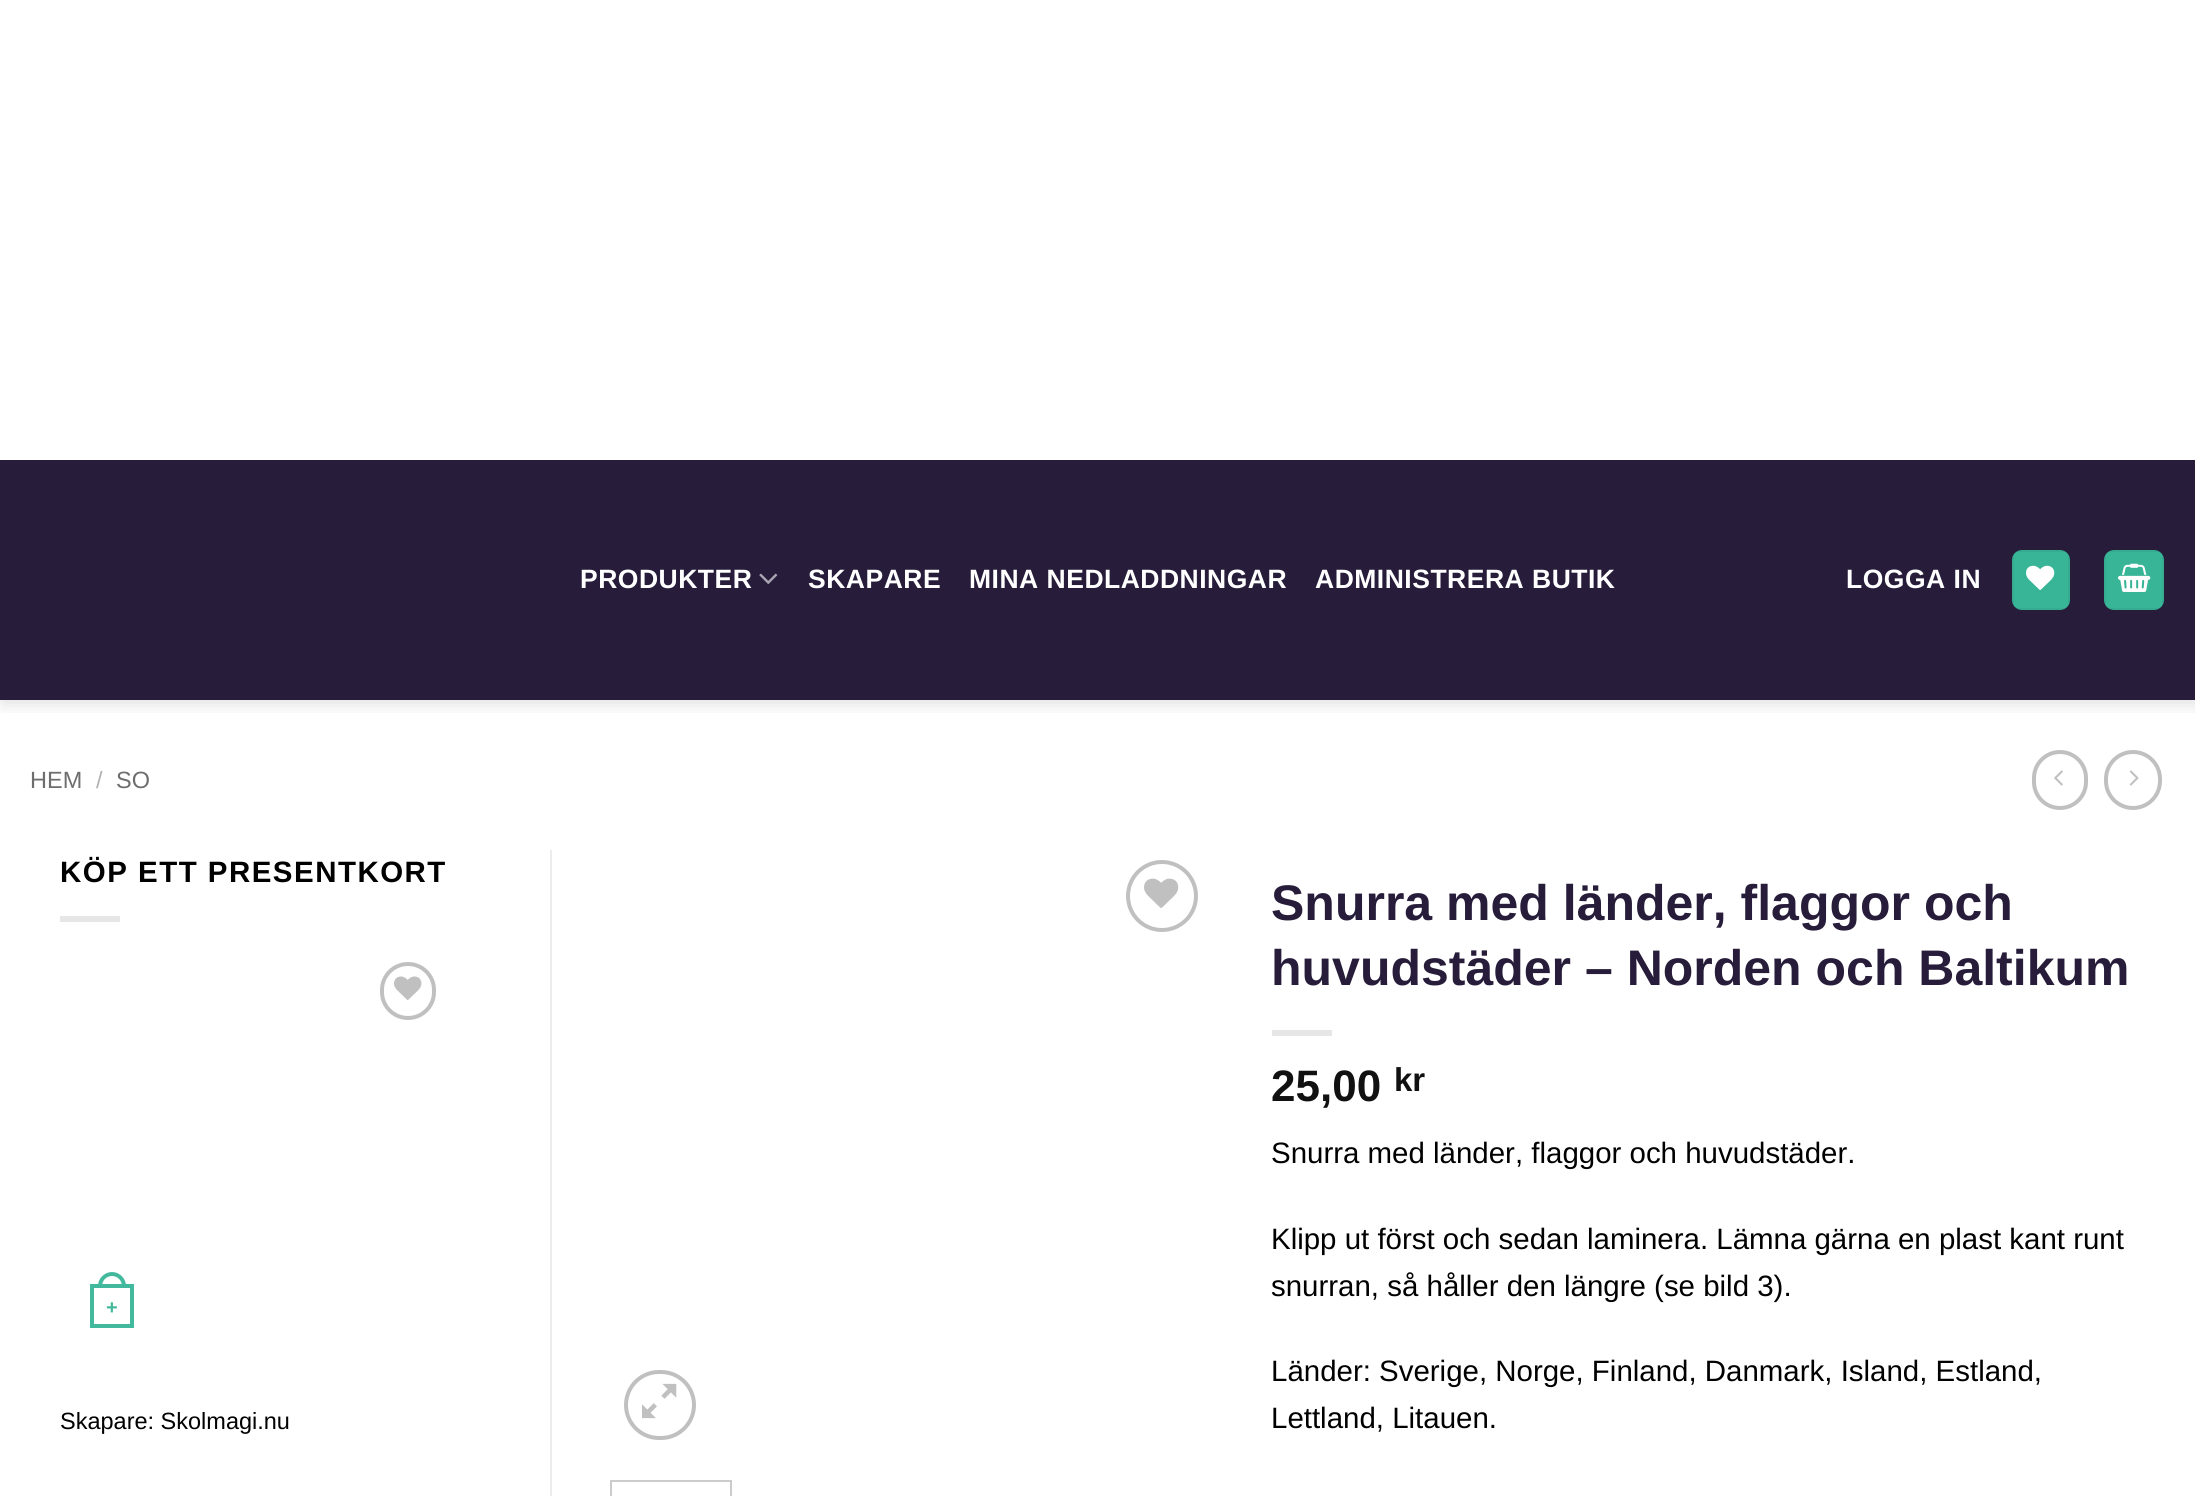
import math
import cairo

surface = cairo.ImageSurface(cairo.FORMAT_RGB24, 2195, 1496)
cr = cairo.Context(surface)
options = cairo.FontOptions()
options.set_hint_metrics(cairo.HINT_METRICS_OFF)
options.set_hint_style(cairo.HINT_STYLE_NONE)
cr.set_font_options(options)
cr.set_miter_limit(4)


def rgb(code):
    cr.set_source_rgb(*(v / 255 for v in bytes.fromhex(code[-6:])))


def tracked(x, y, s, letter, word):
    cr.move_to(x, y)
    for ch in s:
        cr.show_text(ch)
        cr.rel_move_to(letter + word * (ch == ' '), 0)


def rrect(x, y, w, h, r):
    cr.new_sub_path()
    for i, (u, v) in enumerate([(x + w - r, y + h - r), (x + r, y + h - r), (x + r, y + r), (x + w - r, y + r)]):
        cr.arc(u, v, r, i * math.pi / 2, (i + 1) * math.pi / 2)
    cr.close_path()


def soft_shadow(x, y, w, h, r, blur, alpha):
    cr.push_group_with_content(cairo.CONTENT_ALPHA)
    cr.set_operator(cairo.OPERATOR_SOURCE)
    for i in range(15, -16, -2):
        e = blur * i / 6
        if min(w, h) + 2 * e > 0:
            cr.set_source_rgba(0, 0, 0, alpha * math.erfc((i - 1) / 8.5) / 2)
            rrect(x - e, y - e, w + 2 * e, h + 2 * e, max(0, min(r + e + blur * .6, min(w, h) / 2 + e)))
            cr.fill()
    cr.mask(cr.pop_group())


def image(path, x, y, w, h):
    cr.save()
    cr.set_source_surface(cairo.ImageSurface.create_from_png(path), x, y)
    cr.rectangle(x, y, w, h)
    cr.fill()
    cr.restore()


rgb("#ffffff")
cr.paint()
cr.save()
cr.rectangle(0, 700, 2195, 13)
cr.clip()
rgb("#000000")
soft_shadow(2, 2, 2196, 700, 0, 10, 0.15)
cr.restore()
rgb("#271d3b")
cr.rectangle(0, 460, 2195, 240)
cr.fill()
image("img/1.png", 759, 573, 19, 11)
rgb("#38b497")
rrect(2012, 550, 58, 60, 10)
cr.fill()
cr.rectangle(2013, 551, 56, 58)
cr.set_source_rgba(0, 0, 0, 0.05)
cr.stroke()
image("img/2.png", 2026, 565, 29, 25)
rgb("#38b497")
rrect(2104, 550, 60, 60, 10)
cr.fill()
cr.rectangle(2105, 551, 58, 58)
cr.set_source_rgba(0, 0, 0, 0.05)
cr.stroke()
image("img/3.png", 2118, 563, 33, 29)
rrect(2034, 752, 52, 56, 26)
rgb("#c0c0c0")
cr.set_line_width(4)
cr.stroke()
image("img/4.png", 2054, 770, 9, 16)
rrect(2106, 752, 54, 56, 27)
cr.stroke()
image("img/5.png", 2129, 770, 10, 16)
rgb("#e6e6e6")
cr.rectangle(60, 916, 60, 6)
cr.fill()
rrect(382, 964, 52, 54, 26)
rgb("#c0c0c0")
cr.stroke()
image("img/6.png", 394, 976, 28, 24)
cr.rectangle(92, 1286, 40, 40)
rgb("#42b89c")
cr.stroke()
cr.set_fill_rule(cairo.FILL_RULE_EVEN_ODD)
cr.new_path()
cr.move_to(112, 1272)
cr.curve_to(119.5, 1272, 126, 1278.5, 126, 1286)
cr.line_to(126, 1288)
cr.line_to(98, 1288)
cr.line_to(98, 1286)
cr.curve_to(98, 1278.5, 104.5, 1272, 112, 1272)
cr.close_path()
cr.move_to(112, 1276)
cr.curve_to(117.5, 1276, 122, 1280.5, 122, 1286)
cr.line_to(122, 1288)
cr.line_to(102, 1288)
cr.line_to(102, 1286)
cr.curve_to(102, 1280.5, 106.5, 1276, 112, 1276)
cr.close_path()
cr.fill()
rgb("#ececec")
cr.rectangle(550, 850, 2, 646)
cr.fill()
cr.arc(1162, 896, 34, 0, 2 * math.pi)
rgb("#c0c0c0")
cr.stroke()
image("img/7.png", 1144, 878, 35, 30)
rrect(626, 1372, 68, 66, 33)
cr.stroke()
image("img/8.png", 642, 1383, 35, 36)
cr.rectangle(611, 1481, 120, 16)
rgb("#cccccc")
cr.set_line_width(2)
cr.stroke()
rgb("#e6e6e6")
cr.rectangle(1272, 1030, 60, 6)
cr.fill()
cr.select_font_face("Liberation Sans", cairo.FONT_SLANT_NORMAL, cairo.FONT_WEIGHT_BOLD)
cr.set_font_size(26.5)
rgb("#ffffff")
for x, y, s in [
    (580, 588, "PRODUKTER"),
    (808, 588, "SKAPARE"),
    (969, 588, "MINA NEDLADDNINGAR"),
    (1315, 588, "ADMINISTRERA BUTIK"),
    (1846, 588, "LOGGA IN"),
]:
    tracked(x, y, s, 0.5, 0)
cr.select_font_face("Liberation Sans")
cr.set_font_size(23.5)
rgb("#6e6e6e")
cr.move_to(30, 788)
cr.show_text("HEM")
rgb("#b2b2b2")
cr.move_to(96, 788)
cr.show_text("/")
rgb("#6e6e6e")
cr.move_to(116, 788)
cr.show_text("SO")
cr.select_font_face("Liberation Sans", cairo.FONT_SLANT_NORMAL, cairo.FONT_WEIGHT_BOLD)
cr.set_font_size(29.45)
rgb("#000000")
tracked(60, 882, "KÖP ETT PRESENTKORT", 1.5, 0)
cr.set_font_size(20)
rgb("#42b89c")
cr.move_to(106, 1314)
cr.show_text("+")
cr.select_font_face("Liberation Sans")
cr.set_font_size(23.5)
rgb("#000000")
cr.move_to(60, 1429)
cr.show_text("Skapare: Skolmagi.nu")
cr.select_font_face("Liberation Sans", cairo.FONT_SLANT_NORMAL, cairo.FONT_WEIGHT_BOLD)
cr.set_font_size(50)
rgb("#271d3b")
cr.move_to(1271, 920)
cr.show_text("Snurra med länder, flaggor och")
cr.move_to(1271, 985)
cr.show_text("huvudstäder – Norden och Baltikum")
cr.set_font_size(44)
rgb("#111111")
cr.move_to(1271, 1101)
cr.show_text("25,00")
cr.set_font_size(33)
cr.move_to(1394, 1091)
cr.show_text("kr")
cr.select_font_face("Liberation Sans")
cr.set_font_size(29.45)
rgb("#000000")
for x, y, s in [
    (1271, 1163, "Snurra med länder, flaggor och huvudstäder."),
    (1271, 1249, "Klipp ut först och sedan laminera. Lämna gärna en plast kant runt"),
    (1271, 1296, "snurran, så håller den längre (se bild 3)."),
    (1271, 1381, "Länder: Sverige, Norge, Finland, Danmark, Island, Estland,"),
    (1271, 1428, "Lettland, Litauen."),
]:
    cr.move_to(x, y)
    cr.show_text(s)
surface.write_to_png("page.png")
